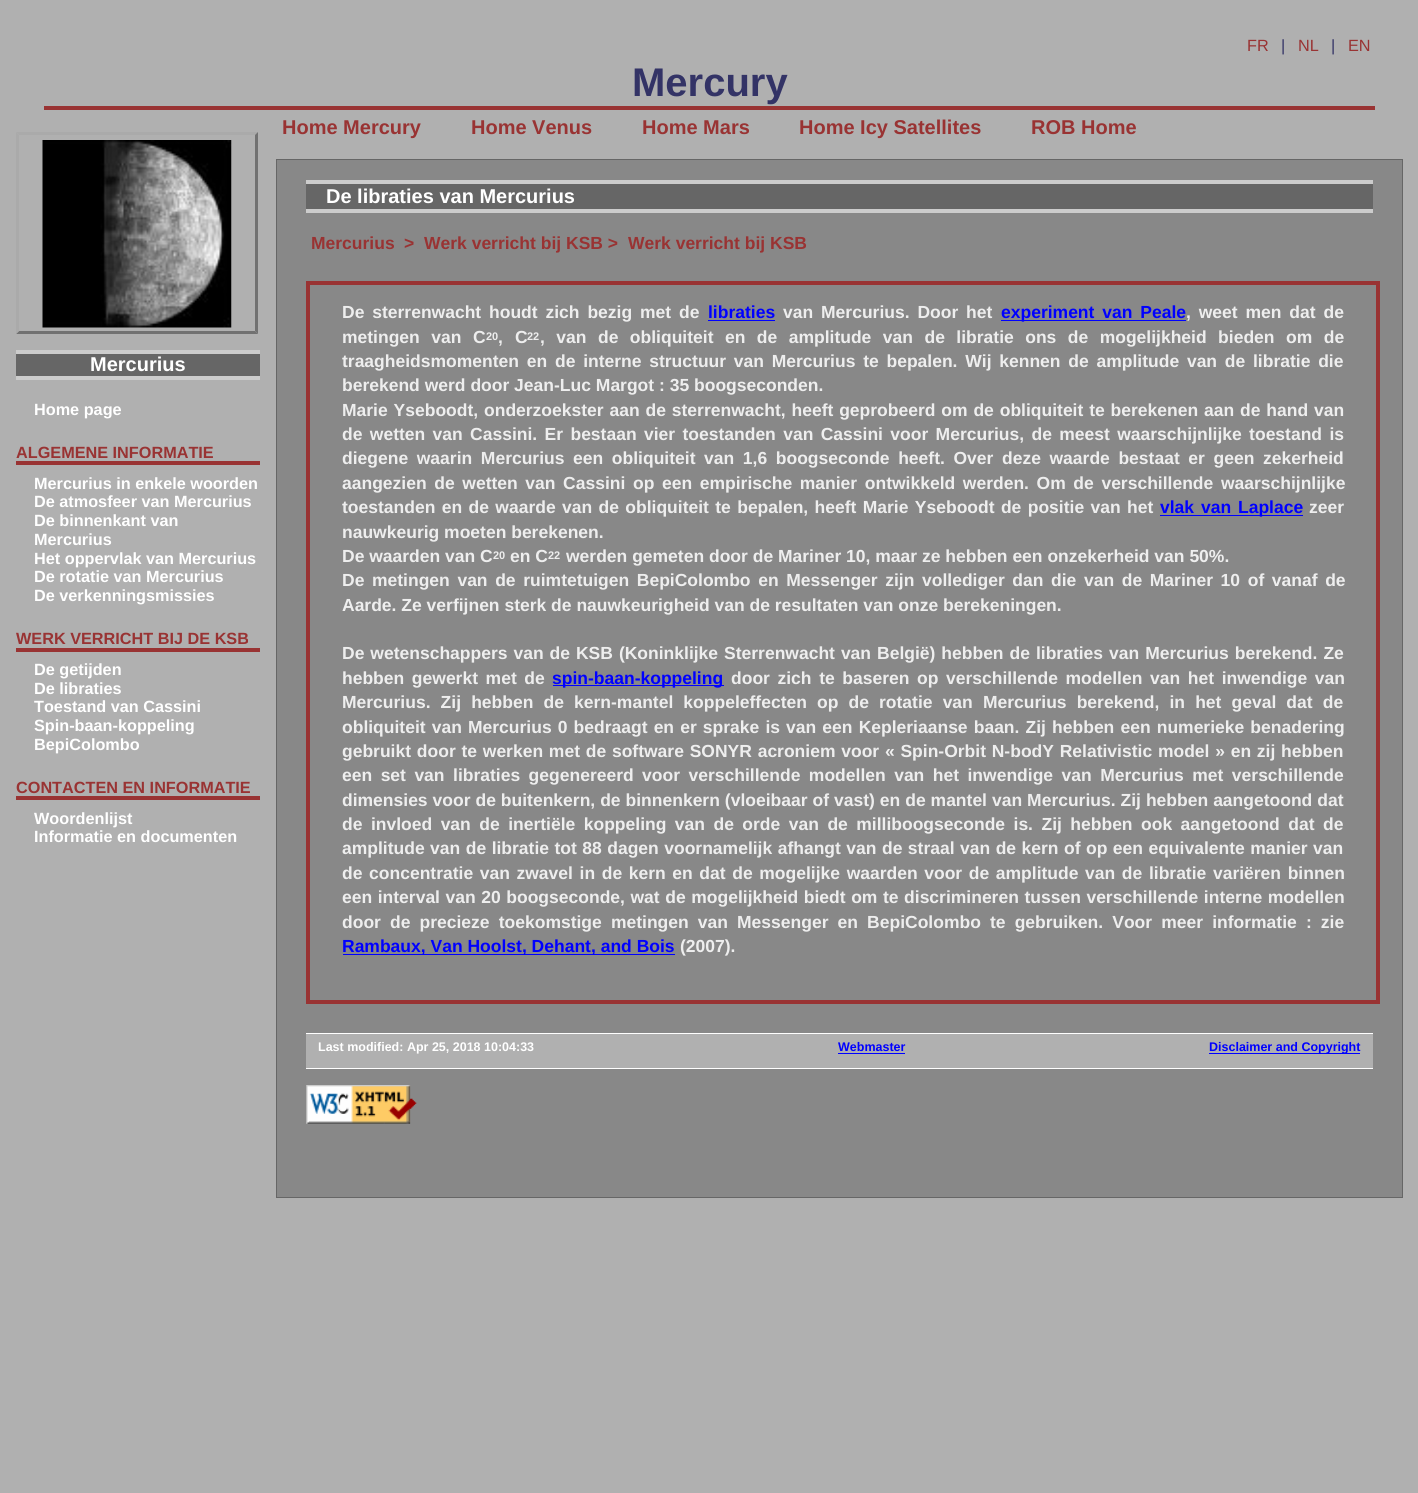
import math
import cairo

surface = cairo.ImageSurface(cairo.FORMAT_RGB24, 1418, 1493)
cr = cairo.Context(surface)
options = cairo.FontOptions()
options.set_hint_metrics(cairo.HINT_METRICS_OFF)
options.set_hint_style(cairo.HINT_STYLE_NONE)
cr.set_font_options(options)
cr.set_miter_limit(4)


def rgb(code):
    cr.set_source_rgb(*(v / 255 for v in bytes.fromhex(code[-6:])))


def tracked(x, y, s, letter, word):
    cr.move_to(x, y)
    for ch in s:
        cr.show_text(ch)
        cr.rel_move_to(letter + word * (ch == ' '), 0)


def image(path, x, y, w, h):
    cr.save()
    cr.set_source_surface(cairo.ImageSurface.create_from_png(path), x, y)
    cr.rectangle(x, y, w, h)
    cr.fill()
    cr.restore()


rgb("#b0b0b0")
cr.paint()
rgb("#993333")
cr.rectangle(44, 106, 1331, 4)
cr.fill()
rgb("#aaaaaa")
cr.new_path()
cr.move_to(16, 132)
cr.line_to(258, 132)
cr.line_to(255, 135)
cr.line_to(19, 135)
cr.close_path()
cr.fill()
rgb("#717171")
cr.new_path()
cr.move_to(258, 132)
cr.line_to(258, 334)
cr.line_to(255, 331)
cr.line_to(255, 135)
cr.close_path()
cr.fill()
cr.new_path()
cr.move_to(258, 334)
cr.line_to(16, 334)
cr.line_to(19, 331)
cr.line_to(255, 331)
cr.close_path()
cr.fill()
rgb("#aaaaaa")
cr.new_path()
cr.move_to(16, 334)
cr.line_to(16, 132)
cr.line_to(19, 135)
cr.line_to(19, 331)
cr.close_path()
cr.fill()
image("img/1.png", 42, 140, 190, 188)
for x, y, w, h, color in [
    (16, 354, 244, 22, "#666666"),
    (16, 350, 244, 4, "#cccccc"),
    (16, 376, 244, 4, "#cccccc"),
    (16, 461, 244, 4, "#993333"),
    (16, 648, 244, 4, "#993333"),
    (16, 796, 244, 4, "#993333"),
]:
    rgb(color)
    cr.rectangle(x, y, w, h)
    cr.fill()
rgb("#888888")
cr.rectangle(276.5, 159.5, 1126, 1038)
cr.fill_preserve()
rgb("#666666")
cr.set_line_width(1)
cr.stroke()
for x, y, w, h, color in [
    (306, 184, 1067, 25, "#666666"),
    (306, 180, 1067, 4, "#cccccc"),
    (306, 209, 1067, 4, "#cccccc"),
]:
    rgb(color)
    cr.rectangle(x, y, w, h)
    cr.fill()
cr.rectangle(308, 283, 1070, 719)
rgb("#993333")
cr.set_line_width(4)
cr.stroke()
for x, y, w, h, color in [
    (708, 320, 67, 1, "#0000ff"),
    (1001, 320, 185, 1, "#0000ff"),
    (1160, 515, 143, 1, "#0000ff"),
    (553, 685, 171, 1, "#0000ff"),
    (343, 954, 332, 1, "#0000ff"),
    (306, 1034, 1067, 34, "#b0b0b0"),
    (306, 1033, 1067, 1, "#ffffff"),
    (306, 1068, 1067, 1, "#ffffff"),
    (838, 1053, 67, 1, "#0000ff"),
    (1209, 1053, 151, 1, "#0000ff"),
]:
    rgb(color)
    cr.rectangle(x, y, w, h)
    cr.fill()
image("img/2.png", 306, 1085, 111, 39)
cr.select_font_face("Liberation Sans")
cr.set_font_size(16.25)
rgb("#993333")
cr.move_to(1247, 51)
cr.show_text("FR")
rgb("#333366")
cr.move_to(1281, 51)
cr.show_text("|")
rgb("#993333")
cr.move_to(1298, 51)
cr.show_text("NL")
rgb("#333366")
cr.move_to(1331, 51)
cr.show_text("|")
rgb("#993333")
cr.move_to(1348, 51)
cr.show_text("EN")
cr.select_font_face("Liberation Sans", cairo.FONT_SLANT_NORMAL, cairo.FONT_WEIGHT_BOLD)
cr.set_font_size(40)
rgb("#333366")
cr.move_to(632, 96)
cr.show_text("Mercury")
cr.set_font_size(20)
rgb("#993333")
for x, y, s in [
    (282, 134, "Home Mercury"),
    (471, 134, "Home Venus"),
    (642, 134, "Home Mars"),
    (799, 134, "Home Icy Satellites"),
    (1031, 134, "ROB Home"),
]:
    cr.move_to(x, y)
    cr.show_text(s)
rgb("#ffffff")
cr.move_to(90, 371)
cr.show_text("Mercurius")
cr.set_font_size(16.25)
cr.move_to(34, 415)
cr.show_text("Home page")
rgb("#993333")
cr.move_to(16, 458)
cr.show_text("ALGEMENE INFORMATIE")
rgb("#ffffff")
for x, y, s in [
    (34, 489, "Mercurius in enkele woorden"),
    (34, 507, "De atmosfeer van Mercurius"),
    (34, 526, "De binnenkant van"),
    (34, 545, "Mercurius"),
    (34, 564, "Het oppervlak van Mercurius"),
    (34, 582, "De rotatie van Mercurius"),
    (34, 601, "De verkenningsmissies"),
]:
    cr.move_to(x, y)
    cr.show_text(s)
rgb("#993333")
cr.move_to(16, 644)
cr.show_text("WERK VERRICHT BIJ DE KSB")
rgb("#ffffff")
for x, y, s in [
    (34, 675, "De getijden"),
    (34, 694, "De libraties"),
    (34, 712, "Toestand van Cassini"),
    (34, 731, "Spin-baan-koppeling"),
    (34, 750, "BepiColombo"),
]:
    cr.move_to(x, y)
    cr.show_text(s)
rgb("#993333")
cr.move_to(16, 793)
cr.show_text("CONTACTEN EN INFORMATIE")
rgb("#ffffff")
cr.move_to(34, 824)
cr.show_text("Woordenlijst")
cr.move_to(34, 842)
cr.show_text("Informatie en documenten")
cr.set_font_size(20)
cr.move_to(326, 203)
cr.show_text("De libraties van Mercurius")
cr.set_font_size(17.5)
rgb("#993333")
for x, y, s in [
    (311, 249, "Mercurius"),
    (404, 249, ">"),
    (424, 249, "Werk verricht bij KSB >"),
    (628, 249, "Werk verricht bij KSB"),
]:
    cr.move_to(x, y)
    cr.show_text(s)
rgb("#eeeeee")
tracked(342, 318, "De sterrenwacht houdt zich bezig met de", 0, 3)
rgb("#0000ff")
cr.move_to(708, 318)
cr.show_text("libraties")
rgb("#eeeeee")
tracked(783, 318, "van Mercurius. Door het", 0, 3)
rgb("#0000ff")
tracked(1001, 318, "experiment van Peale", 0, 3)
rgb("#eeeeee")
tracked(1186, 318, ", weet men dat de", 0, 3)
tracked(342, 343, "metingen van C", 0, 6.6)
cr.set_font_size(11)
cr.move_to(486, 340)
cr.show_text("20")
cr.set_font_size(17.5)
cr.move_to(515, 343)
cr.show_text("C")
cr.set_font_size(11)
cr.move_to(527, 340)
cr.show_text("22")
cr.set_font_size(17.5)
tracked(540, 343, ", van de obliquiteit en de amplitude van de libratie ons de mogelijkheid bieden om de", 0, 6.6)
cr.move_to(498, 343)
cr.show_text(",")
tracked(342, 367, "traagheidsmomenten en de interne structuur van Mercurius te bepalen. Wij kennen de amplitude van de libratie die", 0, 2.9)
cr.move_to(342, 391)
cr.show_text("berekend werd door Jean-Luc Margot : 35 boogseconden.")
tracked(342, 416, "Marie Yseboodt,", 0, 1)
tracked(484, 416, "onderzoekster aan de sterrenwacht, heeft geprobeerd om de obliquiteit te berekenen aan de hand van", 0, 1)
tracked(342, 440, "de wetten van Cassini. Er bestaan vier toestanden van Cassini voor Mercurius, de meest waarschijnlijke toestand is", 0, 2.5)
tracked(342, 464, "diegene waarin Mercurius een obliquiteit van 1,6 boogseconde heeft. Over deze waarde bestaat er geen zekerheid", 0, 3.75)
tracked(342, 489, "aangezien de wetten van Cassini op een empirische manier ontwikkeld werden. Om de verschillende waarschijnlijke", 0, 2.75)
tracked(342, 513, "toestanden en de waarde van de obliquiteit te bepalen, heeft Marie Yseboodt de positie van het", 0, 1.5)
rgb("#0000ff")
tracked(1160, 513, "vlak van Laplace", 0, 2)
rgb("#eeeeee")
for x, y, s in [
    (1309, 513, "zeer"),
    (342, 538, "nauwkeurig moeten berekenen."),
    (342, 562, "De waarden van C"),
]:
    cr.move_to(x, y)
    cr.show_text(s)
cr.set_font_size(11)
cr.move_to(493, 559)
cr.show_text("20")
cr.set_font_size(17.5)
cr.move_to(510, 562)
cr.show_text("en C")
cr.set_font_size(11)
cr.move_to(548, 559)
cr.show_text("22")
cr.set_font_size(17.5)
cr.move_to(566, 562)
cr.show_text("werden gemeten door de Mariner 10, maar ze hebben een onzekerheid van 50%.")
tracked(342, 586, "De metingen van de ruimtetuigen BepiColombo en Messenger zijn vollediger dan die van de Mariner 10 of vanaf de", 0, 2.75)
cr.move_to(342, 611)
cr.show_text("Aarde. Ze verfijnen sterk de nauwkeurigheid van de resultaten van onze berekeningen.")
tracked(342, 659, "De wetenschappers van de KSB (Koninklijke Sterrenwacht van België) hebben de libraties van Mercurius berekend. Ze", 0, 1.1)
tracked(342, 684, "hebben gewerkt met de", 0, 2.75)
rgb("#0000ff")
cr.move_to(552, 684)
cr.show_text("spin-baan-koppeling")
rgb("#eeeeee")
tracked(731, 684, "door zich te baseren op verschillende modellen van het inwendige van", 0, 2.75)
tracked(342, 708, "Mercurius. Zij hebben de kern-mantel koppeleffecten", 0, 5.25)
tracked(817, 708, "op de rotatie van Mercurius berekend, in het geval dat de", 0, 5.25)
tracked(342, 733, "obliquiteit van Mercurius 0 bedraagt en er sprake is van een Kepleriaanse baan. Zij hebben een numerieke benadering", 0, 1.25)
tracked(342, 757, "gebruikt door te werken met de software SONYR acroniem voor « Spin-Orbit N-bodY Relativistic model » en zij hebben", 0, 0.9)
tracked(342, 781, "een set van libraties gegenereerd voor verschillende modellen van het inwendige van Mercurius met verschillende", 0, 3.6)
tracked(342, 806, "dimensies voor de buitenkern, de binnenkern (vloeibaar of vast) en de mantel van Mercurius. Zij hebben aangetoond dat", 0, 0.1)
tracked(342, 830, "de invloed van de inertiële koppeling van de orde van de milliboogseconde is. Zij hebben ook aangetoond dat de", 0, 3.6)
tracked(342, 854, "amplitude van de libratie tot 88 dagen voornamelijk afhangt van de straal van de kern of op een equivalente manier van", 0, 0.6)
tracked(342, 879, "de concentratie van zwavel in de kern en dat de mogelijke waarden voor de amplitude van de libratie variëren binnen", 0, 1.75)
tracked(342, 903, "een interval van 20 boogseconde, wat de mogelijkheid biedt om te discrimineren tussen verschillende interne modellen", 0, 0.7)
tracked(342, 928, "door de precieze toekomstige metingen van", 0, 4.25)
tracked(737, 928, "Messenger en BepiColombo te gebruiken. Voor meer informatie : zie", 0, 4.25)
rgb("#0000ff")
cr.move_to(342, 952)
cr.show_text("Rambaux, Van Hoolst, Dehant, and Bois")
rgb("#eeeeee")
cr.move_to(680, 952)
cr.show_text("(2007).")
cr.set_font_size(12.5)
rgb("#ffffff")
cr.move_to(318, 1051)
cr.show_text("Last modified: Apr 25, 2018 10:04:33")
rgb("#0000ff")
cr.move_to(838, 1051)
cr.show_text("Webmaster")
cr.move_to(1209, 1051)
cr.show_text("Disclaimer and Copyright")
surface.write_to_png("page.png")
